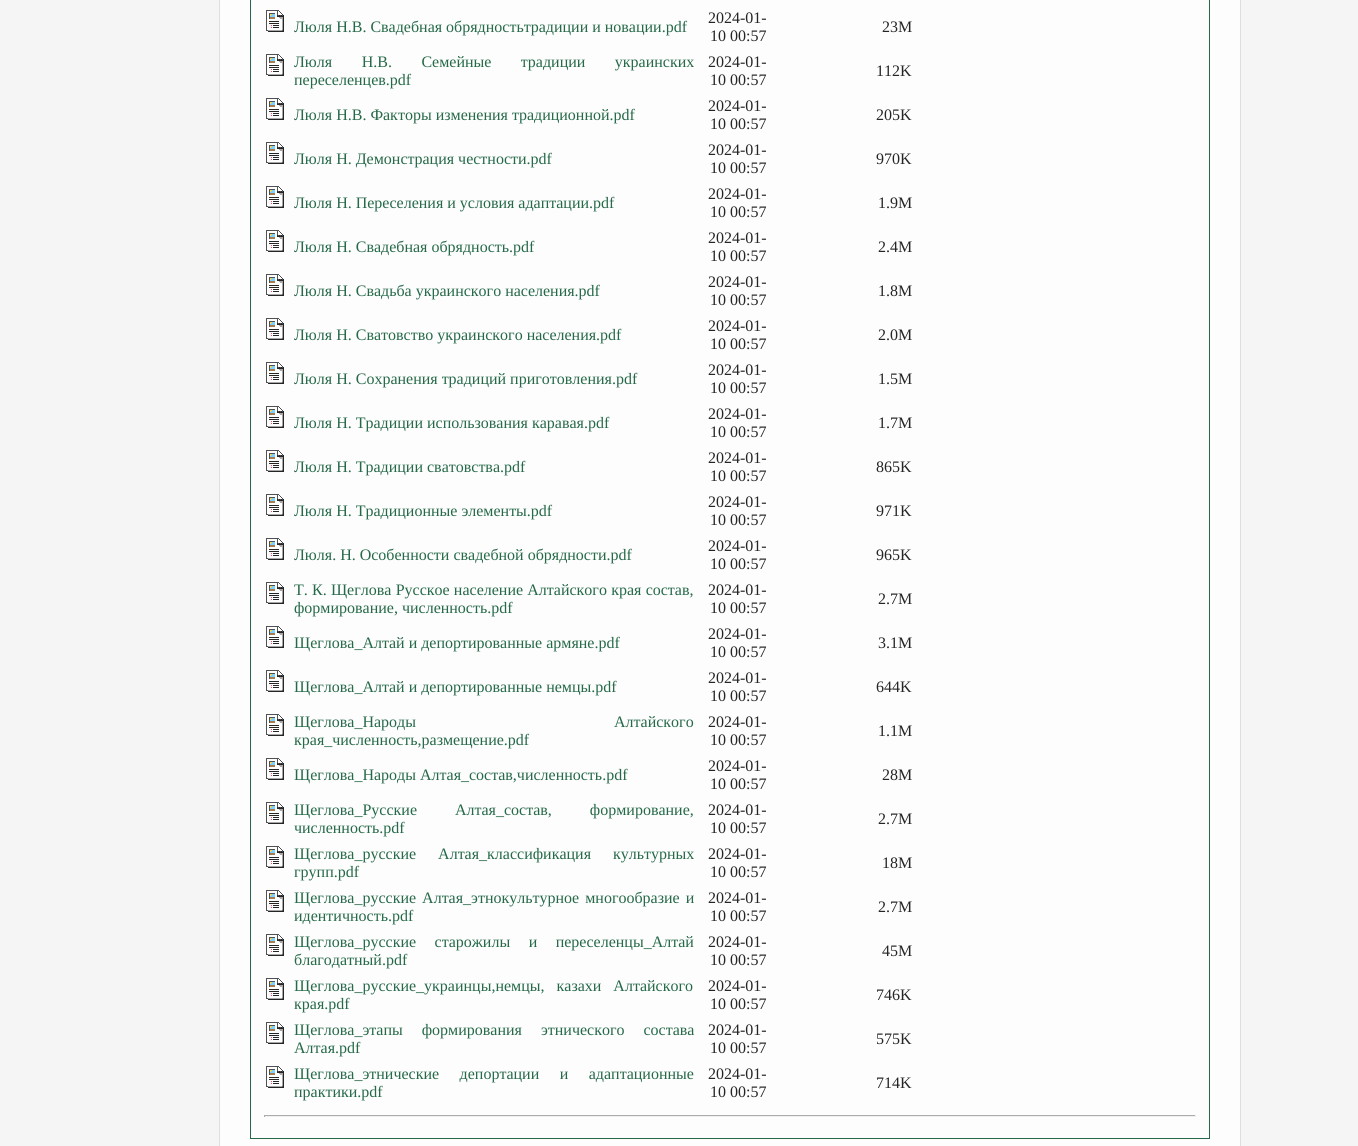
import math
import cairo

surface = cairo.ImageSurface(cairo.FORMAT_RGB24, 1358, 1146)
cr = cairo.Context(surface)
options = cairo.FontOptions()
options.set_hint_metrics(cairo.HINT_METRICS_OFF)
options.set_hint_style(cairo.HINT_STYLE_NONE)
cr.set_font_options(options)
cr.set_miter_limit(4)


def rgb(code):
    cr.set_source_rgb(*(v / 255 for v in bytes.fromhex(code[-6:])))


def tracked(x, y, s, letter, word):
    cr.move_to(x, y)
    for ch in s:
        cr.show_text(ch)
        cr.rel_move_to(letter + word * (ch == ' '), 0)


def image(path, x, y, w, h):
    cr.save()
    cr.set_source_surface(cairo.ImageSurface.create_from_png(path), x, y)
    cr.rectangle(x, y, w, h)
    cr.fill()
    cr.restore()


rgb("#f5f5f5")
cr.paint()
rgb("#fdfdfd")
cr.rectangle(219.5, -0.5, 1021, 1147)
cr.fill_preserve()
rgb("#dddede")
cr.set_line_width(1)
cr.stroke()
cr.rectangle(250.5, -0.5, 959, 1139)
rgb("#256948")
cr.stroke()
image("img/1.png", 266, 10, 18, 22)
image("img/1.png", 266, 54, 18, 22)
image("img/1.png", 266, 98, 18, 22)
image("img/1.png", 266, 142, 18, 22)
image("img/1.png", 266, 186, 18, 22)
image("img/1.png", 266, 230, 18, 22)
image("img/1.png", 266, 274, 18, 22)
image("img/1.png", 266, 318, 18, 22)
image("img/1.png", 266, 362, 18, 22)
image("img/1.png", 266, 406, 18, 22)
image("img/1.png", 266, 450, 18, 22)
image("img/1.png", 266, 494, 18, 22)
image("img/1.png", 266, 538, 18, 22)
image("img/1.png", 266, 582, 18, 22)
image("img/1.png", 266, 626, 18, 22)
image("img/1.png", 266, 670, 18, 22)
image("img/1.png", 266, 714, 18, 22)
image("img/1.png", 266, 758, 18, 22)
image("img/1.png", 266, 802, 18, 22)
image("img/1.png", 266, 846, 18, 22)
image("img/1.png", 266, 890, 18, 22)
image("img/1.png", 266, 934, 18, 22)
image("img/1.png", 266, 978, 18, 22)
image("img/1.png", 266, 1022, 18, 22)
image("img/1.png", 266, 1066, 18, 22)
for x, y, w, h, color in [
    (264, 1115, 932, 1, "#acacac"),
    (1195, 1115, 1, 2, "#efefef"),
    (264, 1116, 932, 1, "#efefef"),
    (264, 1115, 1, 2, "#acacac"),
]:
    rgb(color)
    cr.rectangle(x, y, w, h)
    cr.fill()
cr.select_font_face("Liberation Serif")
cr.set_font_size(16)
rgb("#256948")
cr.move_to(294, 32)
cr.show_text("Люля Н.В. Свадебная обрядностьтрадиции и новации.pdf")
rgb("#252525")
for x, y, s in [
    (708, 23, "2024-01-"),
    (710, 41, "10 00:57"),
    (882, 32, "23M"),
]:
    cr.move_to(x, y)
    cr.show_text(s)
rgb("#256948")
tracked(294, 67, "Люля Н.В. Семейные традиции украинских", 0, 25.5)
cr.move_to(294, 85)
cr.show_text("переселенцев.pdf")
rgb("#252525")
for x, y, s in [
    (708, 67, "2024-01-"),
    (710, 85, "10 00:57"),
    (876, 76, "112K"),
]:
    cr.move_to(x, y)
    cr.show_text(s)
rgb("#256948")
cr.move_to(294, 120)
cr.show_text("Люля Н.В. Факторы изменения традиционной.pdf")
rgb("#252525")
for x, y, s in [
    (708, 111, "2024-01-"),
    (710, 129, "10 00:57"),
    (876, 120, "205K"),
]:
    cr.move_to(x, y)
    cr.show_text(s)
rgb("#256948")
cr.move_to(294, 164)
cr.show_text("Люля Н. Демонстрация честности.pdf")
rgb("#252525")
for x, y, s in [
    (708, 155, "2024-01-"),
    (710, 173, "10 00:57"),
    (876, 164, "970K"),
]:
    cr.move_to(x, y)
    cr.show_text(s)
rgb("#256948")
cr.move_to(294, 208)
cr.show_text("Люля Н. Переселения и условия адаптации.pdf")
rgb("#252525")
for x, y, s in [
    (708, 199, "2024-01-"),
    (710, 217, "10 00:57"),
    (878, 208, "1.9M"),
]:
    cr.move_to(x, y)
    cr.show_text(s)
rgb("#256948")
cr.move_to(294, 252)
cr.show_text("Люля Н. Свадебная обрядность.pdf")
rgb("#252525")
for x, y, s in [
    (708, 243, "2024-01-"),
    (710, 261, "10 00:57"),
    (878, 252, "2.4M"),
]:
    cr.move_to(x, y)
    cr.show_text(s)
rgb("#256948")
cr.move_to(294, 296)
cr.show_text("Люля Н. Свадьба украинского населения.pdf")
rgb("#252525")
for x, y, s in [
    (708, 287, "2024-01-"),
    (710, 305, "10 00:57"),
    (878, 296, "1.8M"),
]:
    cr.move_to(x, y)
    cr.show_text(s)
rgb("#256948")
cr.move_to(294, 340)
cr.show_text("Люля Н. Сватовство украинского населения.pdf")
rgb("#252525")
for x, y, s in [
    (708, 331, "2024-01-"),
    (710, 349, "10 00:57"),
    (878, 340, "2.0M"),
]:
    cr.move_to(x, y)
    cr.show_text(s)
rgb("#256948")
cr.move_to(294, 384)
cr.show_text("Люля Н. Сохранения традиций приготовления.pdf")
rgb("#252525")
for x, y, s in [
    (708, 375, "2024-01-"),
    (710, 393, "10 00:57"),
    (878, 384, "1.5M"),
]:
    cr.move_to(x, y)
    cr.show_text(s)
rgb("#256948")
cr.move_to(294, 428)
cr.show_text("Люля Н. Традиции использования каравая.pdf")
rgb("#252525")
for x, y, s in [
    (708, 419, "2024-01-"),
    (710, 437, "10 00:57"),
    (878, 428, "1.7M"),
]:
    cr.move_to(x, y)
    cr.show_text(s)
rgb("#256948")
cr.move_to(294, 472)
cr.show_text("Люля Н. Традиции сватовства.pdf")
rgb("#252525")
for x, y, s in [
    (708, 463, "2024-01-"),
    (710, 481, "10 00:57"),
    (876, 472, "865K"),
]:
    cr.move_to(x, y)
    cr.show_text(s)
rgb("#256948")
cr.move_to(294, 516)
cr.show_text("Люля Н. Традиционные элементы.pdf")
rgb("#252525")
for x, y, s in [
    (708, 507, "2024-01-"),
    (710, 525, "10 00:57"),
    (876, 516, "971K"),
]:
    cr.move_to(x, y)
    cr.show_text(s)
rgb("#256948")
cr.move_to(294, 560)
cr.show_text("Люля. Н. Особенности свадебной обрядности.pdf")
rgb("#252525")
for x, y, s in [
    (708, 551, "2024-01-"),
    (710, 569, "10 00:57"),
    (876, 560, "965K"),
]:
    cr.move_to(x, y)
    cr.show_text(s)
rgb("#256948")
tracked(294, 595, "Т. К. Щеглова Русское население Алтайского края состав,", 0, 0.25)
cr.move_to(294, 613)
cr.show_text("формирование, численность.pdf")
rgb("#252525")
for x, y, s in [
    (708, 595, "2024-01-"),
    (710, 613, "10 00:57"),
    (878, 604, "2.7M"),
]:
    cr.move_to(x, y)
    cr.show_text(s)
rgb("#256948")
cr.move_to(294, 648)
cr.show_text("Щеглова_Алтай и депортированные армяне.pdf")
rgb("#252525")
for x, y, s in [
    (708, 639, "2024-01-"),
    (710, 657, "10 00:57"),
    (878, 648, "3.1M"),
]:
    cr.move_to(x, y)
    cr.show_text(s)
rgb("#256948")
cr.move_to(294, 692)
cr.show_text("Щеглова_Алтай и депортированные немцы.pdf")
rgb("#252525")
for x, y, s in [
    (708, 683, "2024-01-"),
    (710, 701, "10 00:57"),
    (876, 692, "644K"),
]:
    cr.move_to(x, y)
    cr.show_text(s)
rgb("#256948")
tracked(294, 727, "Щеглова_Народы Алтайского", 0, 194)
cr.move_to(294, 745)
cr.show_text("края_численность,размещение.pdf")
rgb("#252525")
for x, y, s in [
    (708, 727, "2024-01-"),
    (710, 745, "10 00:57"),
    (878, 736, "1.1M"),
]:
    cr.move_to(x, y)
    cr.show_text(s)
rgb("#256948")
cr.move_to(294, 780)
cr.show_text("Щеглова_Народы Алтая_состав,численность.pdf")
rgb("#252525")
for x, y, s in [
    (708, 771, "2024-01-"),
    (710, 789, "10 00:57"),
    (882, 780, "28M"),
]:
    cr.move_to(x, y)
    cr.show_text(s)
rgb("#256948")
tracked(294, 815, "Щеглова_Русские Алтая_состав, формирование,", 0, 34)
cr.move_to(294, 833)
cr.show_text("численность.pdf")
rgb("#252525")
for x, y, s in [
    (708, 815, "2024-01-"),
    (710, 833, "10 00:57"),
    (878, 824, "2.7M"),
]:
    cr.move_to(x, y)
    cr.show_text(s)
rgb("#256948")
tracked(294, 859, "Щеглова_русские Алтая_классификация культурных", 0, 18)
cr.move_to(294, 877)
cr.show_text("групп.pdf")
rgb("#252525")
for x, y, s in [
    (708, 859, "2024-01-"),
    (710, 877, "10 00:57"),
    (882, 868, "18M"),
]:
    cr.move_to(x, y)
    cr.show_text(s)
rgb("#256948")
tracked(294, 903, "Щеглова_русские Алтая_этнокультурное многообразие и", 0, 2)
cr.move_to(294, 921)
cr.show_text("идентичность.pdf")
rgb("#252525")
for x, y, s in [
    (708, 903, "2024-01-"),
    (710, 921, "10 00:57"),
    (878, 912, "2.7M"),
]:
    cr.move_to(x, y)
    cr.show_text(s)
rgb("#256948")
tracked(294, 947, "Щеглова_русские старожилы и переселенцы_Алтай", 0, 14.5)
cr.move_to(294, 965)
cr.show_text("благодатный.pdf")
rgb("#252525")
for x, y, s in [
    (708, 947, "2024-01-"),
    (710, 965, "10 00:57"),
    (882, 956, "45M"),
]:
    cr.move_to(x, y)
    cr.show_text(s)
rgb("#256948")
tracked(294, 991, "Щеглова_русские_украинцы,немцы, казахи Алтайского", 0, 8)
cr.move_to(294, 1009)
cr.show_text("края.pdf")
rgb("#252525")
for x, y, s in [
    (708, 991, "2024-01-"),
    (710, 1009, "10 00:57"),
    (876, 1000, "746K"),
]:
    cr.move_to(x, y)
    cr.show_text(s)
rgb("#256948")
tracked(294, 1035, "Щеглова_этапы формирования этнического состава", 0, 15)
cr.move_to(294, 1053)
cr.show_text("Алтая.pdf")
rgb("#252525")
for x, y, s in [
    (708, 1035, "2024-01-"),
    (710, 1053, "10 00:57"),
    (876, 1044, "575K"),
]:
    cr.move_to(x, y)
    cr.show_text(s)
rgb("#256948")
tracked(294, 1079, "Щеглова_этнические депортации и адаптационные", 0, 16.5)
cr.move_to(294, 1097)
cr.show_text("практики.pdf")
rgb("#252525")
for x, y, s in [
    (708, 1079, "2024-01-"),
    (710, 1097, "10 00:57"),
    (876, 1088, "714K"),
]:
    cr.move_to(x, y)
    cr.show_text(s)
surface.write_to_png("page.png")
